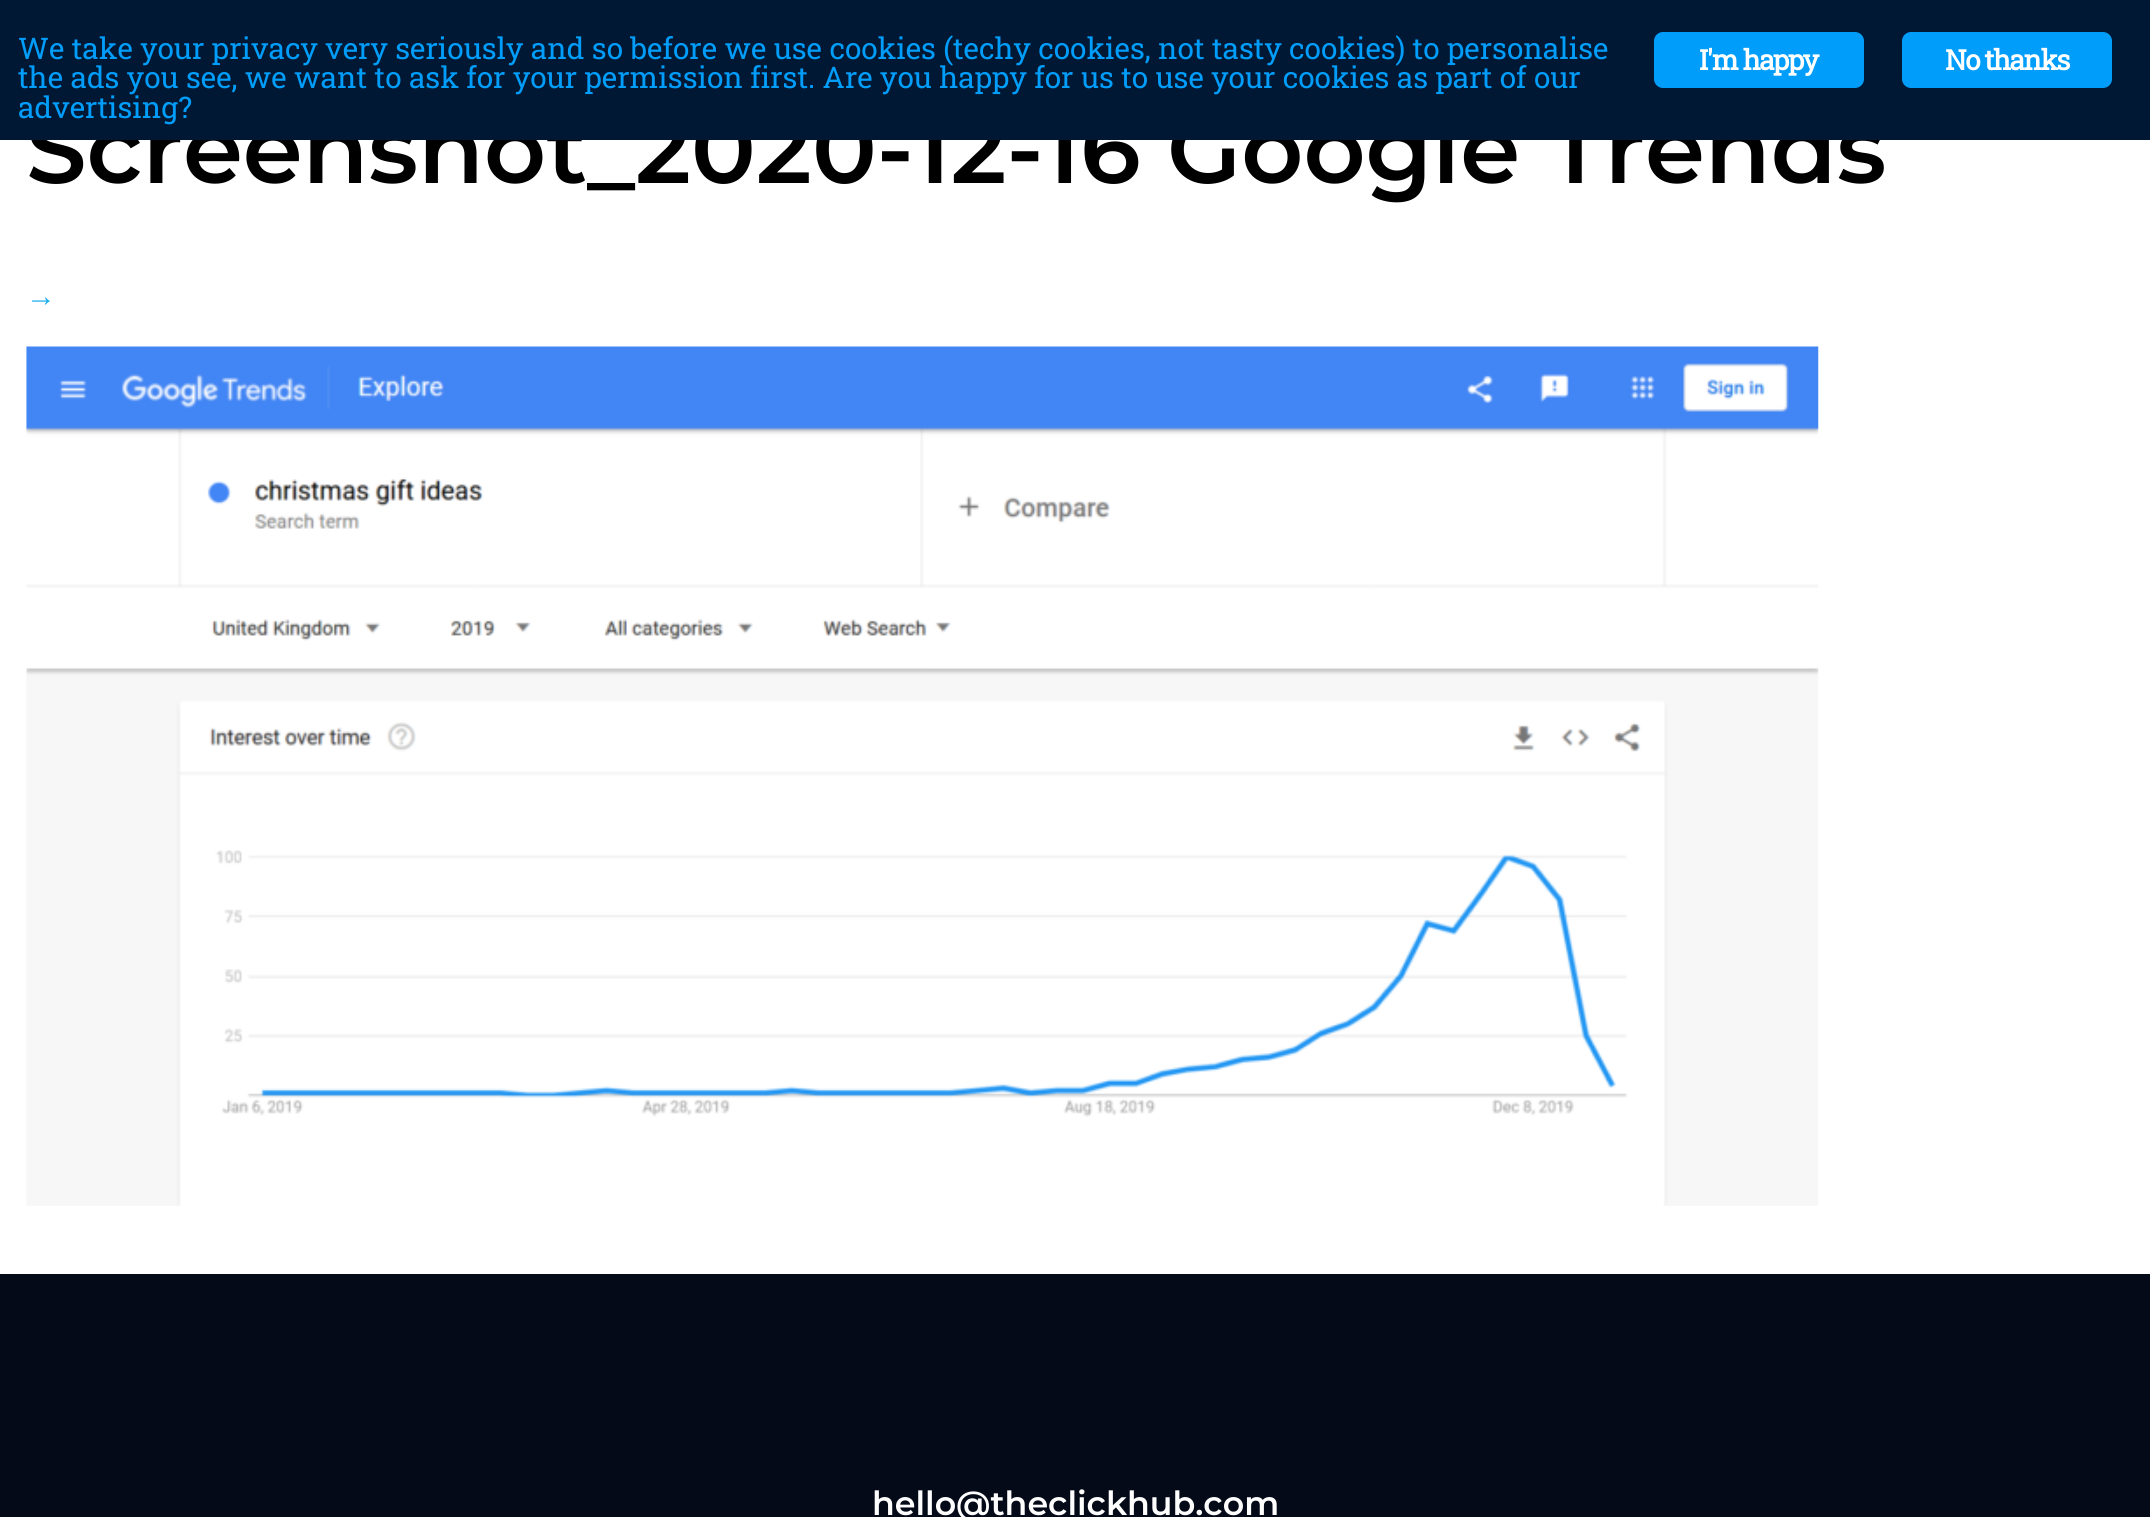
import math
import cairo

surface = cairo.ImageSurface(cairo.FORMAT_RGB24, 2150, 1517)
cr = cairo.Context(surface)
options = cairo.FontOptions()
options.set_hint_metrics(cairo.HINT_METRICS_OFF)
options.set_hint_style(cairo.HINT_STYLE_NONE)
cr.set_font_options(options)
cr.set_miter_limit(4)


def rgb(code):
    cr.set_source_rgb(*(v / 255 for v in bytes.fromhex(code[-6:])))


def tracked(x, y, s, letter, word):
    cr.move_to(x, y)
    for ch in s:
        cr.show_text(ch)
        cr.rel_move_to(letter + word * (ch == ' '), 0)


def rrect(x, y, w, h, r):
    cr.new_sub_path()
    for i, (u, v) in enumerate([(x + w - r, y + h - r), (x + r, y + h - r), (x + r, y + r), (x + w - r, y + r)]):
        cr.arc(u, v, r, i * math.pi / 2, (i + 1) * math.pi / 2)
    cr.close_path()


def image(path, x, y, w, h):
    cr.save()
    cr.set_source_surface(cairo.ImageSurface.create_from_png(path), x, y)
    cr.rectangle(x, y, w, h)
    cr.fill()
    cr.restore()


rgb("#ffffff")
cr.paint()
image("img/1.png", 26, 346, 1793, 860)
rgb("#040a17")
cr.rectangle(0, 1274, 2150, 243)
cr.fill()
cr.select_font_face("Montserrat Thin")
cr.set_font_size(96.25)
rgb("#000000")
cr.move_to(26, 183)
cr.show_text("Screenshot_2020-12-16 Google Trends")
rgb("#001833")
cr.rectangle(0, 0, 2150, 140)
cr.fill()
cr.select_font_face("Roboto Slab")
cr.set_font_size(29.75)
rgb("#009dfb")
for x, y, s in [
    (18, 118, "advertising?"),
    (18, 88, "the ads you see, we want to ask for your permission first. Are you happy for us to use your cookies as part of our"),
    (18, 59, "We take your privacy very seriously and so before we use cookies (techy cookies, not tasty cookies) to personalise"),
]:
    cr.move_to(x, y)
    cr.show_text(s)
rrect(1654, 32, 210, 56, 9)
cr.fill()
cr.select_font_face("Roboto Slab", cairo.FONT_SLANT_NORMAL, cairo.FONT_WEIGHT_BOLD)
cr.set_font_size(28)
rgb("#ffffff")
tracked(1699, 70, "I'm happy", -1.5, 0)
rgb("#009dfb")
rrect(1902, 32, 210, 56, 9)
cr.fill()
rgb("#ffffff")
tracked(1945, 70, "No thanks", -1.5, 0)
cr.select_font_face("Liberation Sans")
cr.set_font_size(29.75)
rgb("#1daeef")
cr.move_to(26, 306)
cr.show_text("→")
cr.select_font_face("Montserrat Thin")
cr.set_font_size(33.25)
rgb("#ffffff")
cr.move_to(872, 1515)
cr.show_text("hello@theclickhub.com")
surface.write_to_png("page.png")
